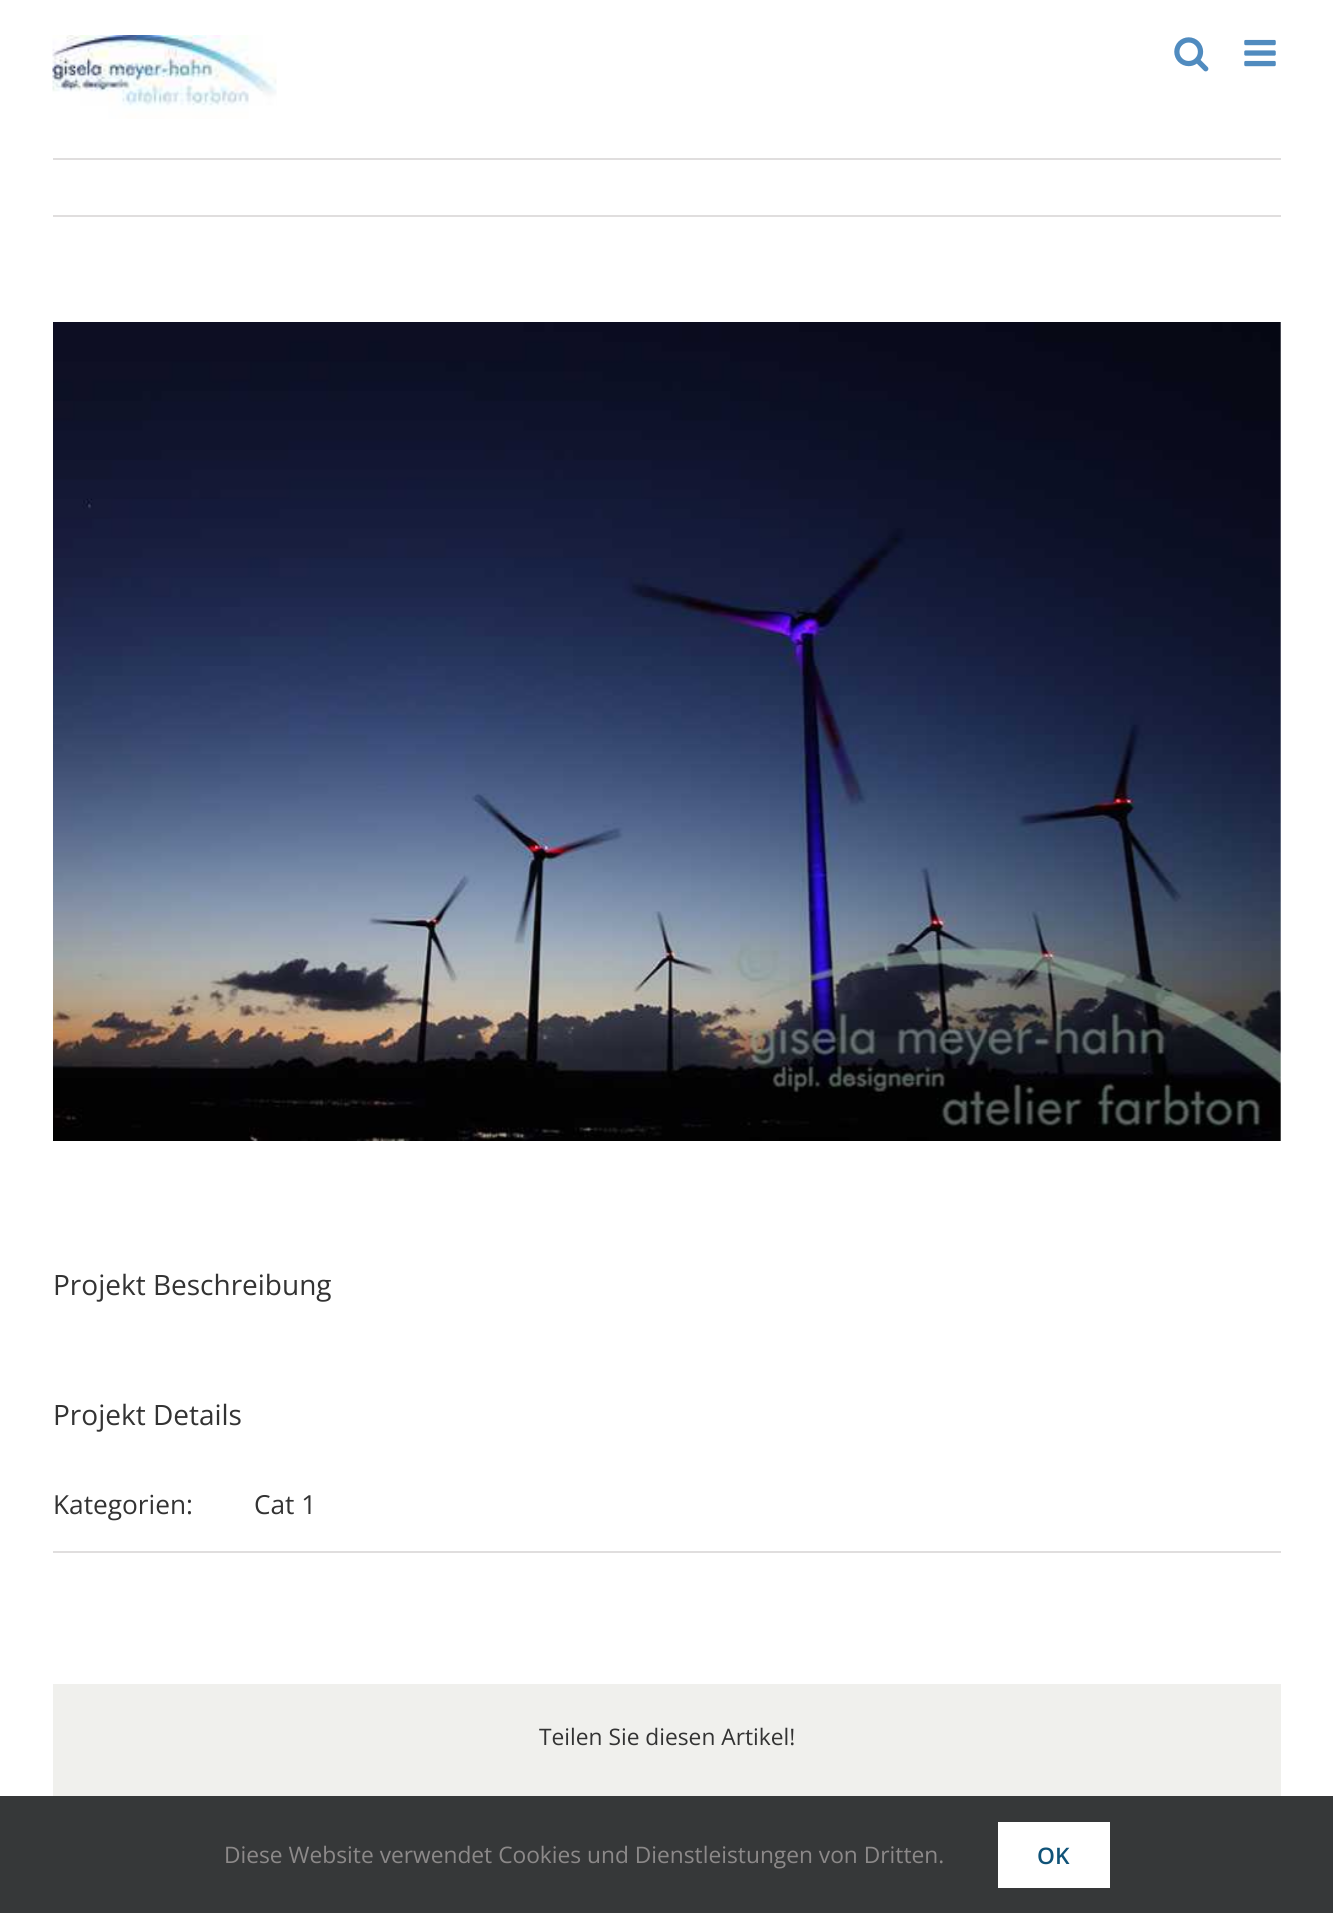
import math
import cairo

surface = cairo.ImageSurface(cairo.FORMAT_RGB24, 1333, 1913)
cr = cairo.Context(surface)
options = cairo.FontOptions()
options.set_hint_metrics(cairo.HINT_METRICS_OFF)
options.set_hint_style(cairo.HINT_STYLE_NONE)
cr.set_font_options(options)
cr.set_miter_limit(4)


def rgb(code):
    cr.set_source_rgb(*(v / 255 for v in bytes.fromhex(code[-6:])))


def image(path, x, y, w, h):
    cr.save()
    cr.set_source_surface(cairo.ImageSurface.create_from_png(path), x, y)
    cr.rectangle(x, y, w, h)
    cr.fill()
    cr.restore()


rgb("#ffffff")
cr.paint()
image("img/1.png", 52, 35, 225, 84)
image("img/2.png", 1174, 37, 35, 35)
image("img/3.png", 1244, 39, 32, 28)
rgb("#e0dede")
cr.rectangle(53, 158, 1228, 2)
cr.fill()
cr.rectangle(53, 215, 1228, 2)
cr.fill()
image("img/4.png", 53, 322, 1228, 819)
for x, y, w, h, color in [
    (53, 1551, 1228, 2, "#e0dede"),
    (53, 1684, 1228, 112, "#f0f0ed"),
    (0, 1796, 1333, 117, "#363839"),
    (998, 1822, 112, 66, "#ffffff"),
]:
    rgb(color)
    cr.rectangle(x, y, w, h)
    cr.fill()
cr.select_font_face("Open Sans")
cr.set_font_size(28)
rgb("#333333")
cr.move_to(53, 1295)
cr.show_text("Projekt Beschreibung")
cr.move_to(53, 1425)
cr.show_text("Projekt Details")
cr.set_font_size(26.25)
cr.move_to(53, 1514)
cr.show_text("Kategorien:")
cr.move_to(254, 1514)
cr.show_text("Cat 1")
cr.set_font_size(22.75)
cr.move_to(539, 1745)
cr.show_text("Teilen Sie diesen Artikel!")
rgb("#8c8989")
cr.move_to(224, 1863)
cr.show_text("Diese Website verwendet Cookies und Dienstleistungen von Dritten.")
cr.select_font_face("Open Sans SemiBold")
rgb("#105378")
cr.move_to(1037, 1864)
cr.show_text("OK")
surface.write_to_png("page.png")
